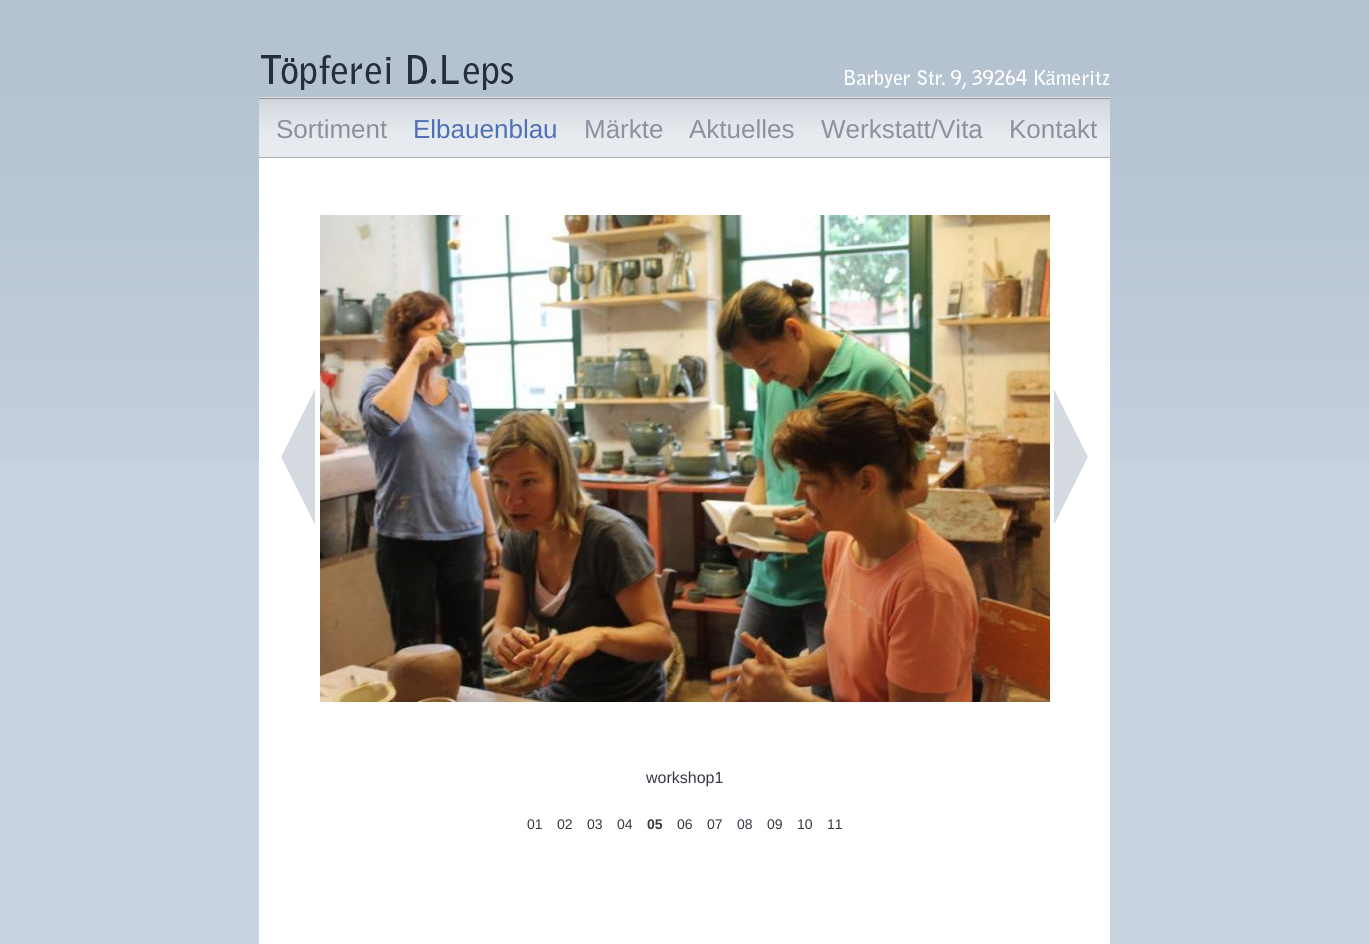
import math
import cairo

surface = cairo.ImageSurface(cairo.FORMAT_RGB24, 1369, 944)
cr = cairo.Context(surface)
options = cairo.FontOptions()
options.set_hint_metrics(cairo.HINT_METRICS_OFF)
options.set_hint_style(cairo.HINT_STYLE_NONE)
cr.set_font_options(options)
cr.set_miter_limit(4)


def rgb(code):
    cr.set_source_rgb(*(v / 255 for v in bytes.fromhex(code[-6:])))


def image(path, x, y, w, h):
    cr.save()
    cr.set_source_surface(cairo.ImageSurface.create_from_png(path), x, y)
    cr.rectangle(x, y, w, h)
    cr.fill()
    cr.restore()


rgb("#c8d3e0")
cr.paint()
image("img/1.png", 0, 0, 1369, 460)
rgb("#ffffff")
cr.rectangle(259, 158, 851, 786)
cr.fill()
image("img/2.png", 259, 0, 851, 98)
image("img/3.png", 259, 98, 851, 60)
image("img/4.png", 281, 389, 34, 136)
image("img/5.png", 320, 215, 730, 487)
image("img/6.png", 1054, 389, 34, 136)
cr.select_font_face("Liberation Sans")
cr.set_font_size(26)
rgb("#8b919e")
cr.move_to(276, 138)
cr.show_text("Sortiment")
rgb("#4f70b7")
cr.move_to(413, 138)
cr.show_text("Elbauenblau")
rgb("#8b919e")
for x, y, s in [
    (584, 138, "Märkte"),
    (689, 138, "Aktuelles"),
    (821, 138, "Werkstatt/Vita"),
    (1009, 138, "Kontakt"),
]:
    cr.move_to(x, y)
    cr.show_text(s)
cr.set_font_size(16)
rgb("#353942")
cr.move_to(646, 783)
cr.show_text("workshop1")
cr.set_font_size(14)
for x, y, s in [
    (527, 829, "01"),
    (557, 829, "02"),
    (587, 829, "03"),
    (617, 829, "04"),
]:
    cr.move_to(x, y)
    cr.show_text(s)
cr.select_font_face("Liberation Sans", cairo.FONT_SLANT_NORMAL, cairo.FONT_WEIGHT_BOLD)
cr.move_to(647, 829)
cr.show_text("05")
cr.select_font_face("Liberation Sans")
for x, y, s in [
    (677, 829, "06"),
    (707, 829, "07"),
    (737, 829, "08"),
    (767, 829, "09"),
    (797, 829, "10"),
    (827, 829, "11"),
]:
    cr.move_to(x, y)
    cr.show_text(s)
surface.write_to_png("page.png")
